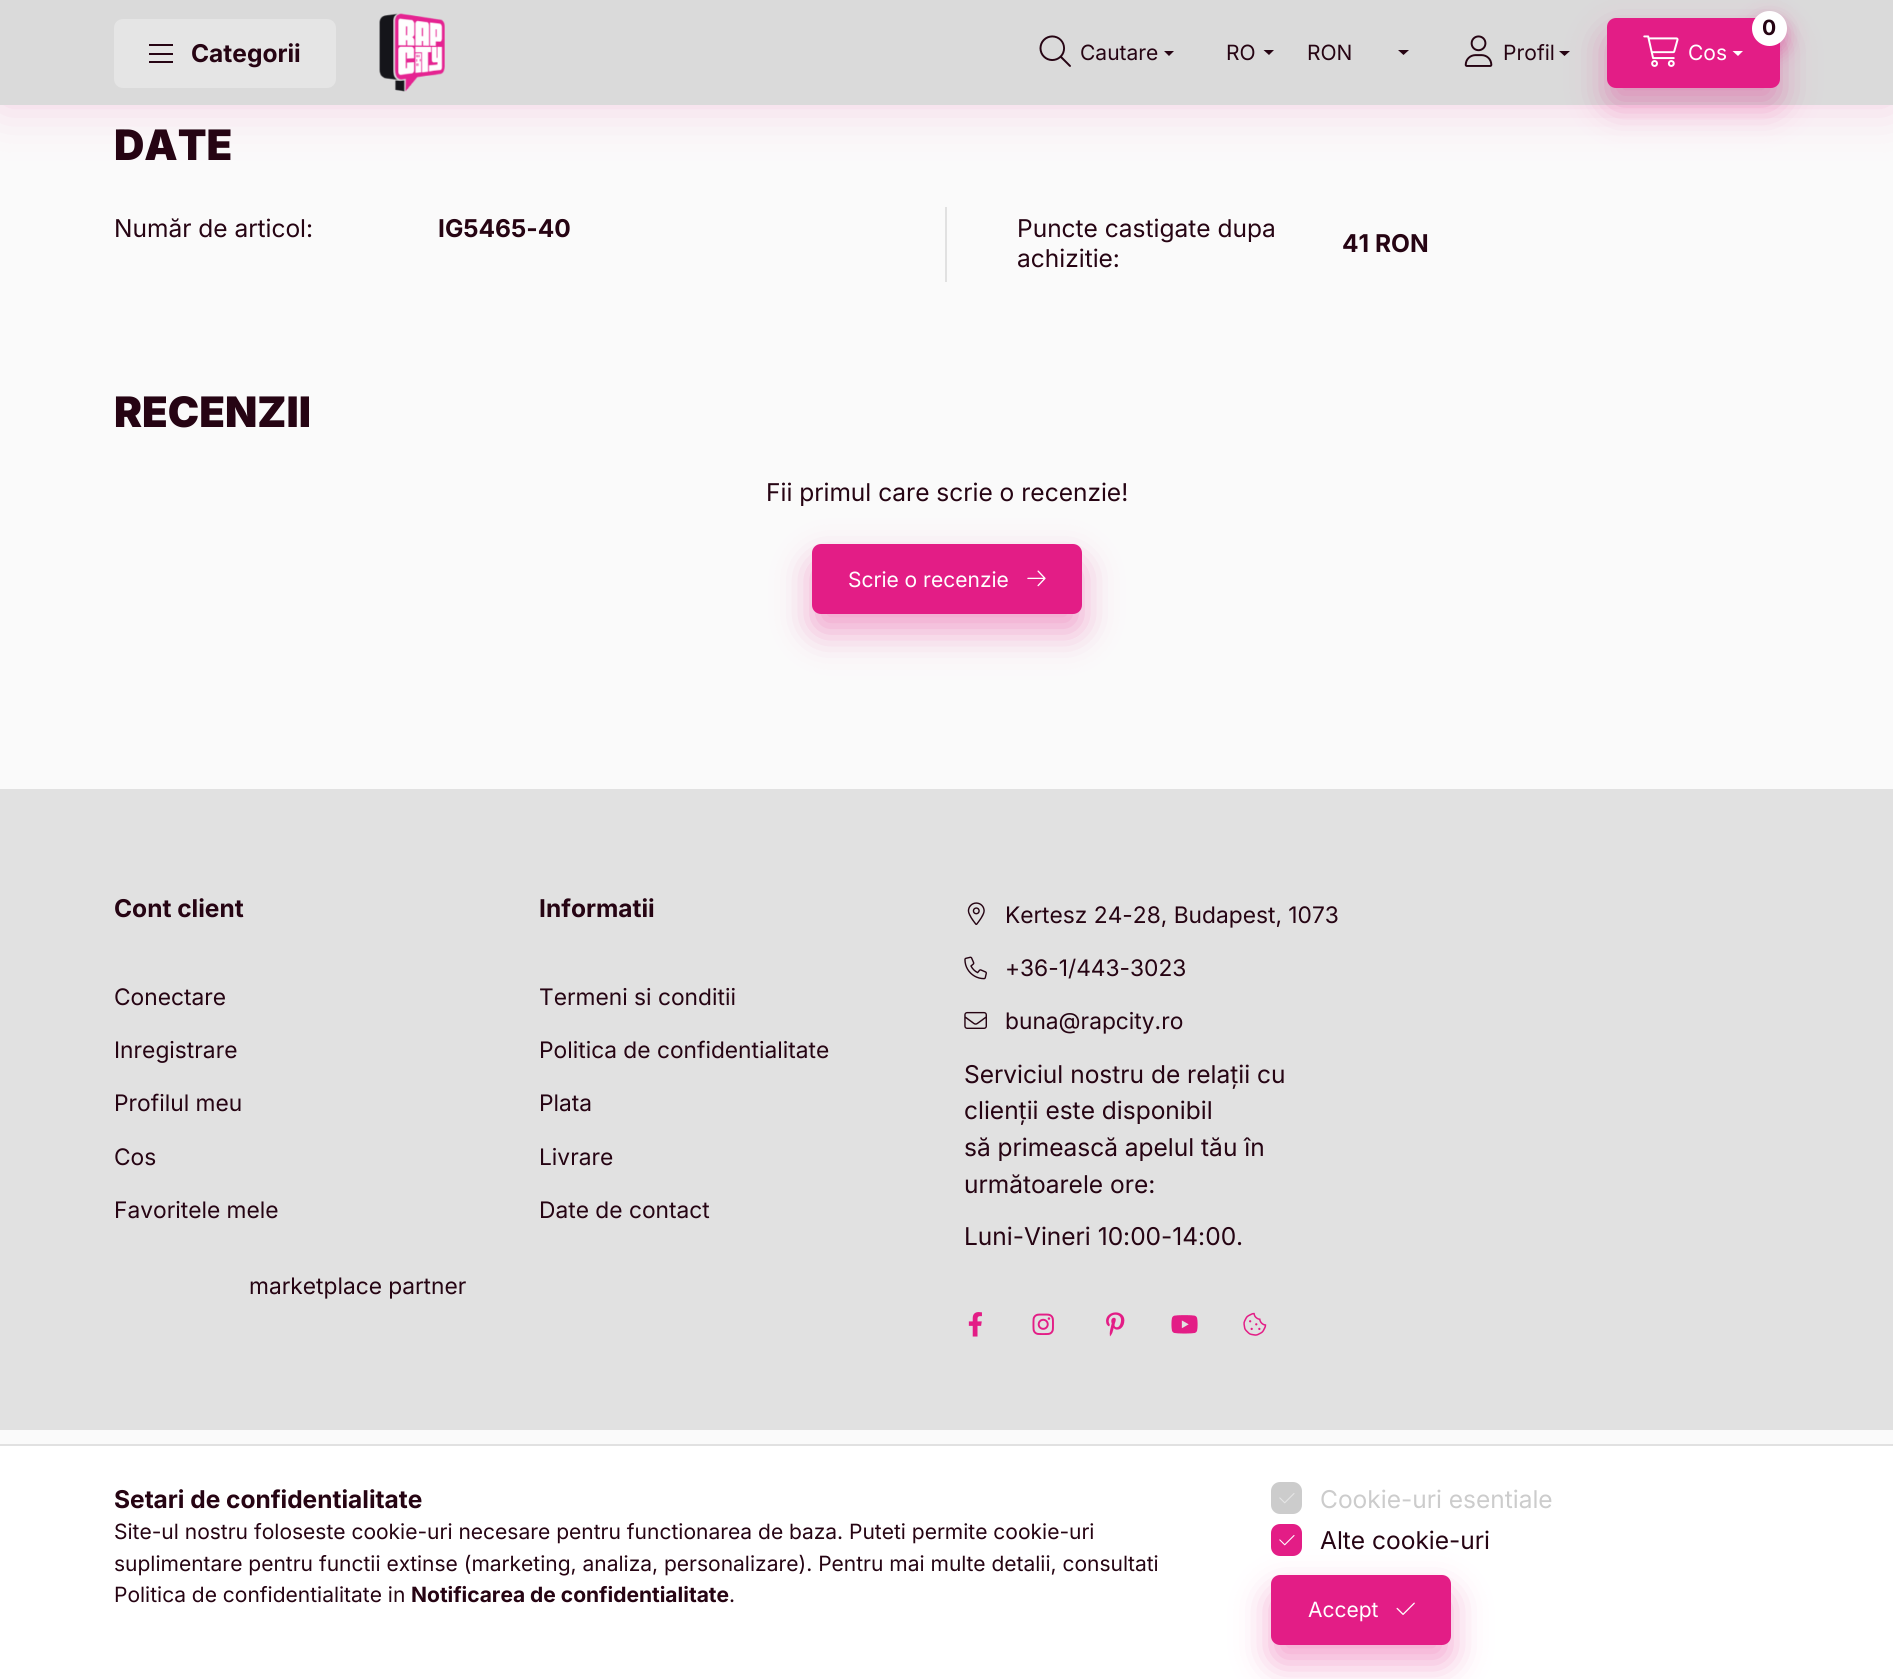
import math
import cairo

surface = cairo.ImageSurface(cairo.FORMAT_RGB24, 1893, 1679)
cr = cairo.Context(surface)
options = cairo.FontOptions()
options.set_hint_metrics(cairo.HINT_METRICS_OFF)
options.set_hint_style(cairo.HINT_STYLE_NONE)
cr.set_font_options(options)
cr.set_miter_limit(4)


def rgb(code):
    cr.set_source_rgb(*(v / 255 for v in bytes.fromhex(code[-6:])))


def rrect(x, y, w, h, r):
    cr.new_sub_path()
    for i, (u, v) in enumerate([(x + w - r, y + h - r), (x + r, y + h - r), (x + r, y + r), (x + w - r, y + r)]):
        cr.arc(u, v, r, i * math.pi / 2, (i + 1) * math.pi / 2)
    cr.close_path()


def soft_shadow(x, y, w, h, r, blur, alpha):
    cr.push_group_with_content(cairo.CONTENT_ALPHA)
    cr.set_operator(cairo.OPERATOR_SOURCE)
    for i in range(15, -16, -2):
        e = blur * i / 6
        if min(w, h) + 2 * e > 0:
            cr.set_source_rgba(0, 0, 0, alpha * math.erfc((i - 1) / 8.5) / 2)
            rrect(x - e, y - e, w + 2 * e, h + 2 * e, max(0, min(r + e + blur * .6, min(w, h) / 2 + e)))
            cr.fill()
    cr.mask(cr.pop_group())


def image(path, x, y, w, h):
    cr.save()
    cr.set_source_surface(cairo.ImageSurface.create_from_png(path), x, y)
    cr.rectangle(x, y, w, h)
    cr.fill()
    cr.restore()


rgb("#fafafa")
cr.paint()
rgb("#e31d86")
soft_shadow(0, 0, 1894, 105, 0, 26, 0.2)
rgb("#dadada")
cr.rectangle(0, 0, 1893, 105)
cr.fill()
rgb("#e5e5e5")
rrect(114, 19, 222, 69, 9)
cr.fill()
for x, y, w, h, color in [
    (149, 44, 24, 2, "#260413"),
    (149, 53, 24, 2, "#260413"),
    (149, 61, 24, 2, "#260413"),
]:
    rgb(color)
    cr.rectangle(x, y, w, h)
    cr.fill()
image("img/1.png", 379, 13, 66, 79)
image("img/2.png", 1039, 35, 32, 32)
cr.new_path()
cr.move_to(1164, 51)
cr.line_to(1174, 51)
cr.line_to(1169, 56)
cr.close_path()
cr.fill()
cr.new_path()
cr.move_to(1263.5, 50)
cr.line_to(1274, 50)
cr.line_to(1269, 55)
cr.close_path()
cr.fill()
cr.new_path()
cr.move_to(1398, 50)
cr.line_to(1409, 50)
cr.line_to(1403.5, 55)
cr.close_path()
cr.fill()
image("img/3.png", 1464, 35, 29, 32)
rgb("#e31d86")
soft_shadow(1607, 35, 173, 70, 9, 17.5, 0.4)
rgb("#260413")
cr.new_path()
cr.move_to(1559, 51)
cr.line_to(1570, 51)
cr.line_to(1564.5, 56)
cr.close_path()
cr.fill()
rgb("#e31d86")
rrect(1607, 18, 173, 70, 9)
cr.fill()
rgb("#e31d86")
soft_shadow(1752, 19, 35, 35, 17.5, 9, 0.4)
rgb("#ffffff")
cr.arc(1769.5, 28.5, 17.5, 0, 2 * math.pi)
cr.fill()
image("img/4.png", 1643, 35, 36, 32)
cr.new_path()
cr.move_to(1732.5, 51)
cr.line_to(1743, 51)
cr.line_to(1738, 56)
cr.close_path()
cr.fill()
rgb("#e1e1e1")
cr.rectangle(945, 207, 2, 75)
cr.fill()
rgb("#e31d86")
soft_shadow(812, 562, 270, 70, 9, 17.5, 0.4)
rgb("#e31d86")
rrect(813, 545, 268, 68, 8)
cr.fill_preserve()
cr.stroke()
image("img/5.png", 1027, 570, 19, 17)
rgb("#e1e1e1")
cr.rectangle(0, 789, 1893, 641)
cr.fill()
image("img/6.png", 967, 902, 18, 23)
image("img/7.png", 964, 956, 23, 24)
image("img/8.png", 964, 1011, 23, 18)
image("img/9.png", 968, 1312, 14, 25)
image("img/10.png", 1032, 1313, 22, 22)
image("img/11.png", 1106, 1312, 19, 25)
image("img/12.png", 1171, 1315, 27, 19)
image("img/13.png", 1243, 1312, 24, 24)
rgb("#ffffff")
cr.rectangle(0, 1446, 1893, 233)
cr.fill()
rgb("#e1e1e1")
cr.rectangle(0, 1444, 1893, 2)
cr.fill()
rgb("#cccccc")
rrect(1272, 1483, 29, 30, 8)
cr.fill_preserve()
cr.stroke()
image("img/14.png", 1279, 1493, 16, 11)
rgb("#e31d86")
soft_shadow(1271, 1593, 180, 70, 9, 17.5, 0.4)
rgb("#e31d86")
rrect(1272, 1525, 29, 30, 8)
cr.fill_preserve()
cr.stroke()
image("img/15.png", 1279, 1535, 16, 11)
rrect(1272, 1576, 178, 68, 8)
cr.fill_preserve()
cr.stroke()
image("img/16.png", 1396, 1602, 19, 13)
cr.select_font_face("Inter", cairo.FONT_SLANT_NORMAL, cairo.FONT_WEIGHT_BOLD)
cr.set_font_size(24.5)
rgb("#260413")
cr.move_to(191, 62)
cr.show_text("Categorii")
cr.select_font_face("Inter")
cr.set_font_size(21)
for x, y, s in [
    (1080, 60, "Cautare"),
    (1226, 60, "RO"),
    (1307, 60, "RON"),
    (1503, 60, "Profil"),
]:
    cr.move_to(x, y)
    cr.show_text(s)
cr.select_font_face("Inter", cairo.FONT_SLANT_NORMAL, cairo.FONT_WEIGHT_BOLD)
cr.move_to(1762, 35)
cr.show_text("0")
cr.select_font_face("Inter")
rgb("#ffffff")
cr.move_to(1688, 60)
cr.show_text("Cos")
cr.select_font_face("Inter Black")
cr.set_font_size(42)
rgb("#260413")
cr.move_to(114, 160)
cr.show_text("DATE")
cr.select_font_face("Inter")
cr.set_font_size(24.5)
cr.move_to(114, 237)
cr.show_text("Număr de articol:")
cr.select_font_face("Inter", cairo.FONT_SLANT_NORMAL, cairo.FONT_WEIGHT_BOLD)
cr.move_to(438, 237)
cr.show_text("IG5465-40")
cr.select_font_face("Inter")
cr.move_to(1017, 237)
cr.show_text("Puncte castigate dupa")
cr.move_to(1017, 267)
cr.show_text("achizitie:")
cr.select_font_face("Inter", cairo.FONT_SLANT_NORMAL, cairo.FONT_WEIGHT_BOLD)
cr.move_to(1342, 252)
cr.show_text("41 RON")
cr.select_font_face("Inter Black")
cr.set_font_size(42)
cr.move_to(114, 427)
cr.show_text("RECENZII")
cr.select_font_face("Inter")
cr.set_font_size(24.5)
cr.move_to(766, 501)
cr.show_text("Fii primul care scrie o recenzie!")
cr.set_font_size(21)
rgb("#ffffff")
cr.move_to(848, 587)
cr.show_text("Scrie o recenzie")
cr.select_font_face("Inter", cairo.FONT_SLANT_NORMAL, cairo.FONT_WEIGHT_BOLD)
cr.set_font_size(24.5)
rgb("#260413")
cr.move_to(114, 917)
cr.show_text("Cont client")
cr.select_font_face("Inter")
cr.set_font_size(22.75)
for x, y, s in [
    (114, 1005, "Conectare"),
    (114, 1058, "Inregistrare"),
    (114, 1111, "Profilul meu"),
    (114, 1165, "Cos"),
    (114, 1218, "Favoritele mele"),
    (249, 1294, "marketplace partner"),
]:
    cr.move_to(x, y)
    cr.show_text(s)
cr.select_font_face("Inter", cairo.FONT_SLANT_NORMAL, cairo.FONT_WEIGHT_BOLD)
cr.set_font_size(24.5)
cr.move_to(539, 917)
cr.show_text("Informatii")
cr.select_font_face("Inter")
cr.set_font_size(22.75)
for x, y, s in [
    (539, 1005, "Termeni si conditii"),
    (539, 1058, "Politica de confidentialitate"),
    (539, 1111, "Plata"),
    (539, 1165, "Livrare"),
    (539, 1218, "Date de contact"),
    (1005, 923, "Kertesz 24-28, Budapest, 1073"),
    (1005, 976, "+36-1/443-3023"),
    (1005, 1029, "buna@rapcity.ro"),
]:
    cr.move_to(x, y)
    cr.show_text(s)
cr.set_font_size(24.5)
for x, y, s in [
    (964, 1083, "Serviciul nostru de relații cu"),
    (964, 1119, "clienții este disponibil"),
    (964, 1156, "să primească apelul tău în"),
    (964, 1193, "următoarele ore:"),
    (964, 1245, "Luni-Vineri 10:00-14:00."),
]:
    cr.move_to(x, y)
    cr.show_text(s)
cr.select_font_face("Inter", cairo.FONT_SLANT_NORMAL, cairo.FONT_WEIGHT_BOLD)
cr.move_to(114, 1508)
cr.show_text("Setari de confidentialitate")
cr.select_font_face("Inter")
cr.set_font_size(21)
for x, y, s in [
    (114, 1539, "Site-ul nostru foloseste cookie-uri necesare pentru functionarea de baza. Puteti permite cookie-uri"),
    (114, 1571, "suplimentare pentru functii extinse (marketing, analiza, personalizare). Pentru mai multe detalii, consultati"),
    (114, 1602, "Politica de confidentialitate in"),
]:
    cr.move_to(x, y)
    cr.show_text(s)
cr.select_font_face("Inter", cairo.FONT_SLANT_NORMAL, cairo.FONT_WEIGHT_BOLD)
cr.move_to(411, 1602)
cr.show_text("Notificarea de confidentialitate")
cr.select_font_face("Inter")
cr.move_to(729, 1602)
cr.show_text(".")
cr.set_font_size(24.5)
rgb("#cccccc")
cr.move_to(1320, 1508)
cr.show_text("Cookie-uri esentiale")
rgb("#260413")
cr.move_to(1320, 1549)
cr.show_text("Alte cookie-uri")
cr.set_font_size(21)
rgb("#ffffff")
cr.move_to(1308, 1617)
cr.show_text("Accept")
surface.write_to_png("page.png")
